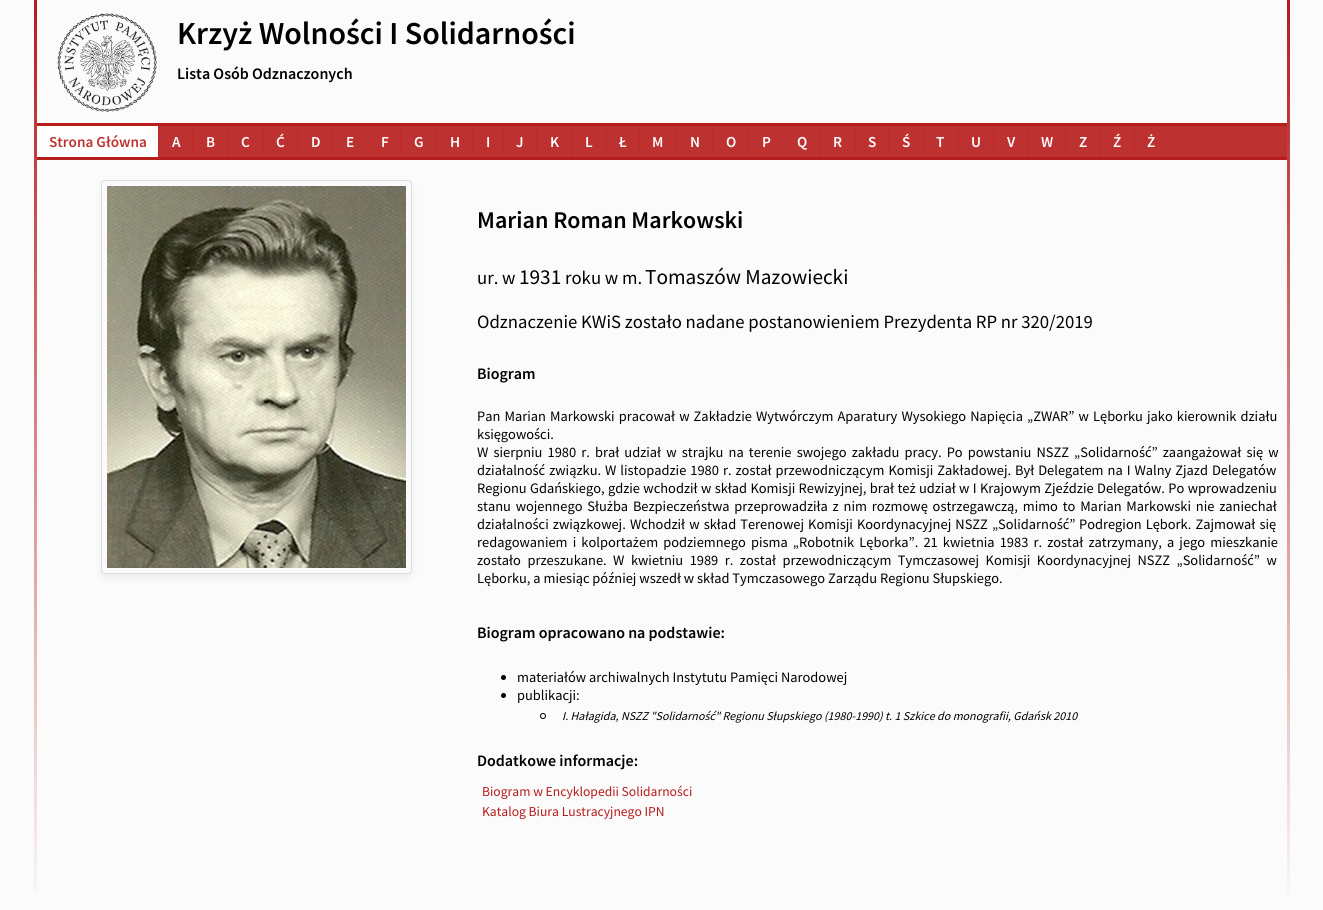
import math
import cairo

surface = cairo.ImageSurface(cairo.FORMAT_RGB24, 1323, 910)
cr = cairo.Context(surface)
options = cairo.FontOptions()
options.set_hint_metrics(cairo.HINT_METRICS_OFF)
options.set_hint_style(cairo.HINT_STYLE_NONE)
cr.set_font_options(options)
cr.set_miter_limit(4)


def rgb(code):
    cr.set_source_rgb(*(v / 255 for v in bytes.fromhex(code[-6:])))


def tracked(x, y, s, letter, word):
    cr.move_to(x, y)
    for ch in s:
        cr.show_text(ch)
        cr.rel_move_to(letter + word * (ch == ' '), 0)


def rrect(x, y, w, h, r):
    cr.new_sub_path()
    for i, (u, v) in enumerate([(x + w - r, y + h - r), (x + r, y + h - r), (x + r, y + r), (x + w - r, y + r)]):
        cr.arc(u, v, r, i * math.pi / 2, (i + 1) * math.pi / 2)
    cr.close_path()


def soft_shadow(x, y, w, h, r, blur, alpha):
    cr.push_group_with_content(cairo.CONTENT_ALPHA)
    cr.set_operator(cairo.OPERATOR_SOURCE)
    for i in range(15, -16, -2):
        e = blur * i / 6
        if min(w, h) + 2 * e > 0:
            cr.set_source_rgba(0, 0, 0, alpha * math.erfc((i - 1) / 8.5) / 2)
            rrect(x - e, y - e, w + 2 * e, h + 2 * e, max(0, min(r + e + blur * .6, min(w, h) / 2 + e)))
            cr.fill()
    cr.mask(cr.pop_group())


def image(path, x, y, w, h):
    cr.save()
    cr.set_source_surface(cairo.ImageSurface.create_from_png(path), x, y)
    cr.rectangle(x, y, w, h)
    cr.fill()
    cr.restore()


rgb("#fbfbfb")
cr.paint()
image("img/1.png", 34, 0, 1256, 894)
image("img/2.png", 57, 13, 100, 99)
for x, y, w, h, color in [
    (160, 126, 1127, 31, "#be3131"),
    (37, 123, 1250, 3, "#b81d1d"),
    (37, 157, 1250, 3, "#b81d1d"),
    (158, 126, 2, 31, "#bd2d2d"),
    (37, 126, 121, 31, "#ffffff"),
    (192, 126, 2, 31, "#bd2d2d"),
    (227, 126, 2, 31, "#bd2d2d"),
    (262, 126, 2, 31, "#bd2d2d"),
    (297, 126, 2, 31, "#bd2d2d"),
    (332, 126, 2, 31, "#bd2d2d"),
    (367, 126, 2, 31, "#bd2d2d"),
    (400, 126, 2, 31, "#bd2d2d"),
    (436, 126, 2, 31, "#bd2d2d"),
    (472, 126, 2, 31, "#bd2d2d"),
    (502, 126, 2, 31, "#bd2d2d"),
    (536, 126, 2, 31, "#bd2d2d"),
    (571, 126, 2, 31, "#bd2d2d"),
    (605, 126, 2, 31, "#bd2d2d"),
    (638, 126, 2, 31, "#bd2d2d"),
    (676, 126, 2, 31, "#bd2d2d"),
    (712, 126, 2, 31, "#bd2d2d"),
    (748, 126, 2, 31, "#bd2d2d"),
    (783, 126, 2, 31, "#bd2d2d"),
    (819, 126, 2, 31, "#bd2d2d"),
    (854, 126, 2, 31, "#bd2d2d"),
    (888, 126, 2, 31, "#bd2d2d"),
    (922, 126, 2, 31, "#bd2d2d"),
    (957, 126, 2, 31, "#bd2d2d"),
    (993, 126, 2, 31, "#bd2d2d"),
    (1027, 126, 2, 31, "#bd2d2d"),
    (1065, 126, 2, 31, "#bd2d2d"),
    (1099, 126, 2, 31, "#bd2d2d"),
    (1133, 126, 2, 31, "#bd2d2d"),
]:
    rgb(color)
    cr.rectangle(x, y, w, h)
    cr.fill()
cr.save()
cr.set_fill_rule(cairo.FILL_RULE_EVEN_ODD)
cr.new_path()
cr.move_to(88, 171)
cr.line_to(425, 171)
cr.line_to(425, 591)
cr.line_to(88, 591)
cr.close_path()
cr.move_to(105, 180)
cr.line_to(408, 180)
cr.curve_to(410, 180, 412, 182, 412, 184)
cr.line_to(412, 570)
cr.curve_to(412, 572, 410, 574, 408, 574)
cr.line_to(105, 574)
cr.curve_to(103, 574, 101, 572, 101, 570)
cr.line_to(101, 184)
cr.curve_to(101, 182, 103, 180, 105, 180)
cr.close_path()
cr.clip()
rgb("#000000")
soft_shadow(101, 184, 311, 394, 4, 4, 0.06)
cr.restore()
rrect(101.5, 180.5, 310, 393, 3.5)
rgb("#dddddd")
cr.set_line_width(1)
cr.stroke()
image("img/3.png", 107, 186, 299, 382)
rgb("#000000")
cr.arc(503.5, 677.5, 2.5, 0, 2 * math.pi)
cr.fill()
cr.arc(503.5, 695.5, 2.5, 0, 2 * math.pi)
cr.fill()
cr.arc(543, 716, 2.5, 0, 2 * math.pi)
cr.stroke()
cr.select_font_face("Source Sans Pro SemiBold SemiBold")
cr.set_font_size(32)
cr.move_to(177, 44)
cr.show_text("Krzyż Wolności I Solidarności")
cr.set_font_size(16)
cr.move_to(177, 79)
cr.show_text("Lista Osób Odznaczonych")
cr.set_font_size(15.25)
rgb("#be3232")
cr.move_to(49, 147)
cr.show_text("Strona Główna")
rgb("#ffffff")
for x, y, s in [
    (172, 147, "A"),
    (206, 147, "B"),
    (241, 147, "C"),
    (276, 147, "Ć"),
    (311, 147, "D"),
    (346, 147, "E"),
    (381, 147, "F"),
    (414, 147, "G"),
    (450, 147, "H"),
    (486, 147, "I"),
    (516, 147, "J"),
    (550, 147, "K"),
    (585, 147, "L"),
    (619, 147, "Ł"),
    (652, 147, "M"),
    (690, 147, "N"),
    (726, 147, "O"),
    (762, 147, "P"),
    (797, 147, "Q"),
    (833, 147, "R"),
    (868, 147, "S"),
    (902, 147, "Ś"),
    (936, 147, "T"),
    (971, 147, "U"),
    (1007, 147, "V"),
    (1041, 147, "W"),
    (1079, 147, "Z"),
    (1113, 147, "Ź"),
    (1147, 147, "Ż"),
]:
    cr.move_to(x, y)
    cr.show_text(s)
cr.set_font_size(24)
rgb("#000000")
cr.move_to(477, 228)
cr.show_text("Marian Roman Markowski")
cr.select_font_face("Source Sans Pro")
cr.set_font_size(18.7)
cr.move_to(477, 284)
cr.show_text("ur. w")
cr.set_font_size(21.25)
cr.move_to(519, 284)
cr.show_text("1931")
cr.set_font_size(18.7)
cr.move_to(565, 284)
cr.show_text("roku w m.")
cr.set_font_size(21.25)
cr.move_to(645, 284)
cr.show_text("Tomaszów Mazowiecki")
cr.set_font_size(18.7)
cr.move_to(477, 328)
cr.show_text("Odznaczenie KWiS zostało nadane postanowieniem Prezydenta RP nr 320/2019")
cr.select_font_face("Source Sans Pro SemiBold SemiBold")
cr.set_font_size(16)
cr.move_to(477, 379)
cr.show_text("Biogram")
cr.select_font_face("Source Sans Pro")
cr.set_font_size(14.4)
tracked(477, 421, "Pan Marian Markowski pracował w Zakładzie Wytwórczym Aparatury Wysokiego Napięcia „ZWAR” w Lęborku jako kierownik działu", 0, 1.25)
cr.move_to(477, 439)
cr.show_text("księgowości.")
tracked(477, 457, "W sierpniu 1980 r. brał udział w strajku na terenie swojego zakładu pracy. Po powstaniu NSZZ „Solidarność” zaangażował się w", 0, 2.25)
tracked(477, 475, "działalność związku. W listopadzie 1980 r. został przewodniczącym Komisji Zakładowej. Był Delegatem na I Walny Zjazd Delegatów", 0, 1.1)
tracked(477, 493, "Regionu Gdańskiego, gdzie wchodził w skład Komisji Rewizyjnej, brał też udział w I Krajowym Zjeździe Delegatów. Po wprowadzeniu", 0, 0.5)
tracked(477, 511, "stanu wojennego Służba Bezpieczeństwa przeprowadziła z nim rozmowę ostrzegawczą, mimo to Marian Markowski nie zaniechał", 0, 1.9)
tracked(477, 529, "działalności związkowej. Wchodził w skład Terenowej Komisji Koordynacyjnej NSZZ „Solidarność”", 0, 1.25)
tracked(1079, 529, "Podregion Lębork. Zajmował się", 0, 1.25)
tracked(477, 547, "redagowaniem i kolportażem podziemnego pisma „Robotnik Lęborka”. 21 kwietnia 1983 r. został zatrzymany, a jego mieszkanie", 0, 2.25)
tracked(477, 565, "zostało przeszukane. W kwietniu 1989 r. został przewodniczącym Tymczasowej Komisji Koordynacyjnej NSZZ „Solidarność” w", 0, 3.6)
cr.move_to(477, 583)
cr.show_text("Lęborku, a miesiąc później wszedł w skład Tymczasowego Zarządu Regionu Słupskiego.")
cr.select_font_face("Source Sans Pro SemiBold SemiBold")
cr.set_font_size(16)
cr.move_to(477, 638)
cr.show_text("Biogram opracowano na podstawie:")
cr.select_font_face("Source Sans Pro")
cr.set_font_size(14.4)
cr.move_to(517, 682)
cr.show_text("materiałów archiwalnych Instytutu Pamięci Narodowej")
cr.move_to(517, 700)
cr.show_text("publikacji:")
cr.select_font_face("Source Sans Pro", cairo.FONT_SLANT_ITALIC)
cr.set_font_size(12)
cr.move_to(562, 720)
cr.show_text("I. Hałagida, NSZZ \"Solidarność\" Regionu Słupskiego (1980-1990) t. 1 Szkice do monografii, Gdańsk 2010")
cr.select_font_face("Source Sans Pro SemiBold SemiBold")
cr.set_font_size(16)
cr.move_to(477, 766)
cr.show_text("Dodatkowe informacje:")
cr.select_font_face("Source Sans Pro")
cr.set_font_size(13.6)
rgb("#b71b1b")
cr.move_to(482, 796)
cr.show_text("Biogram w Encyklopedii Solidarności")
cr.move_to(482, 816)
cr.show_text("Katalog Biura Lustracyjnego IPN")
surface.write_to_png("page.png")
